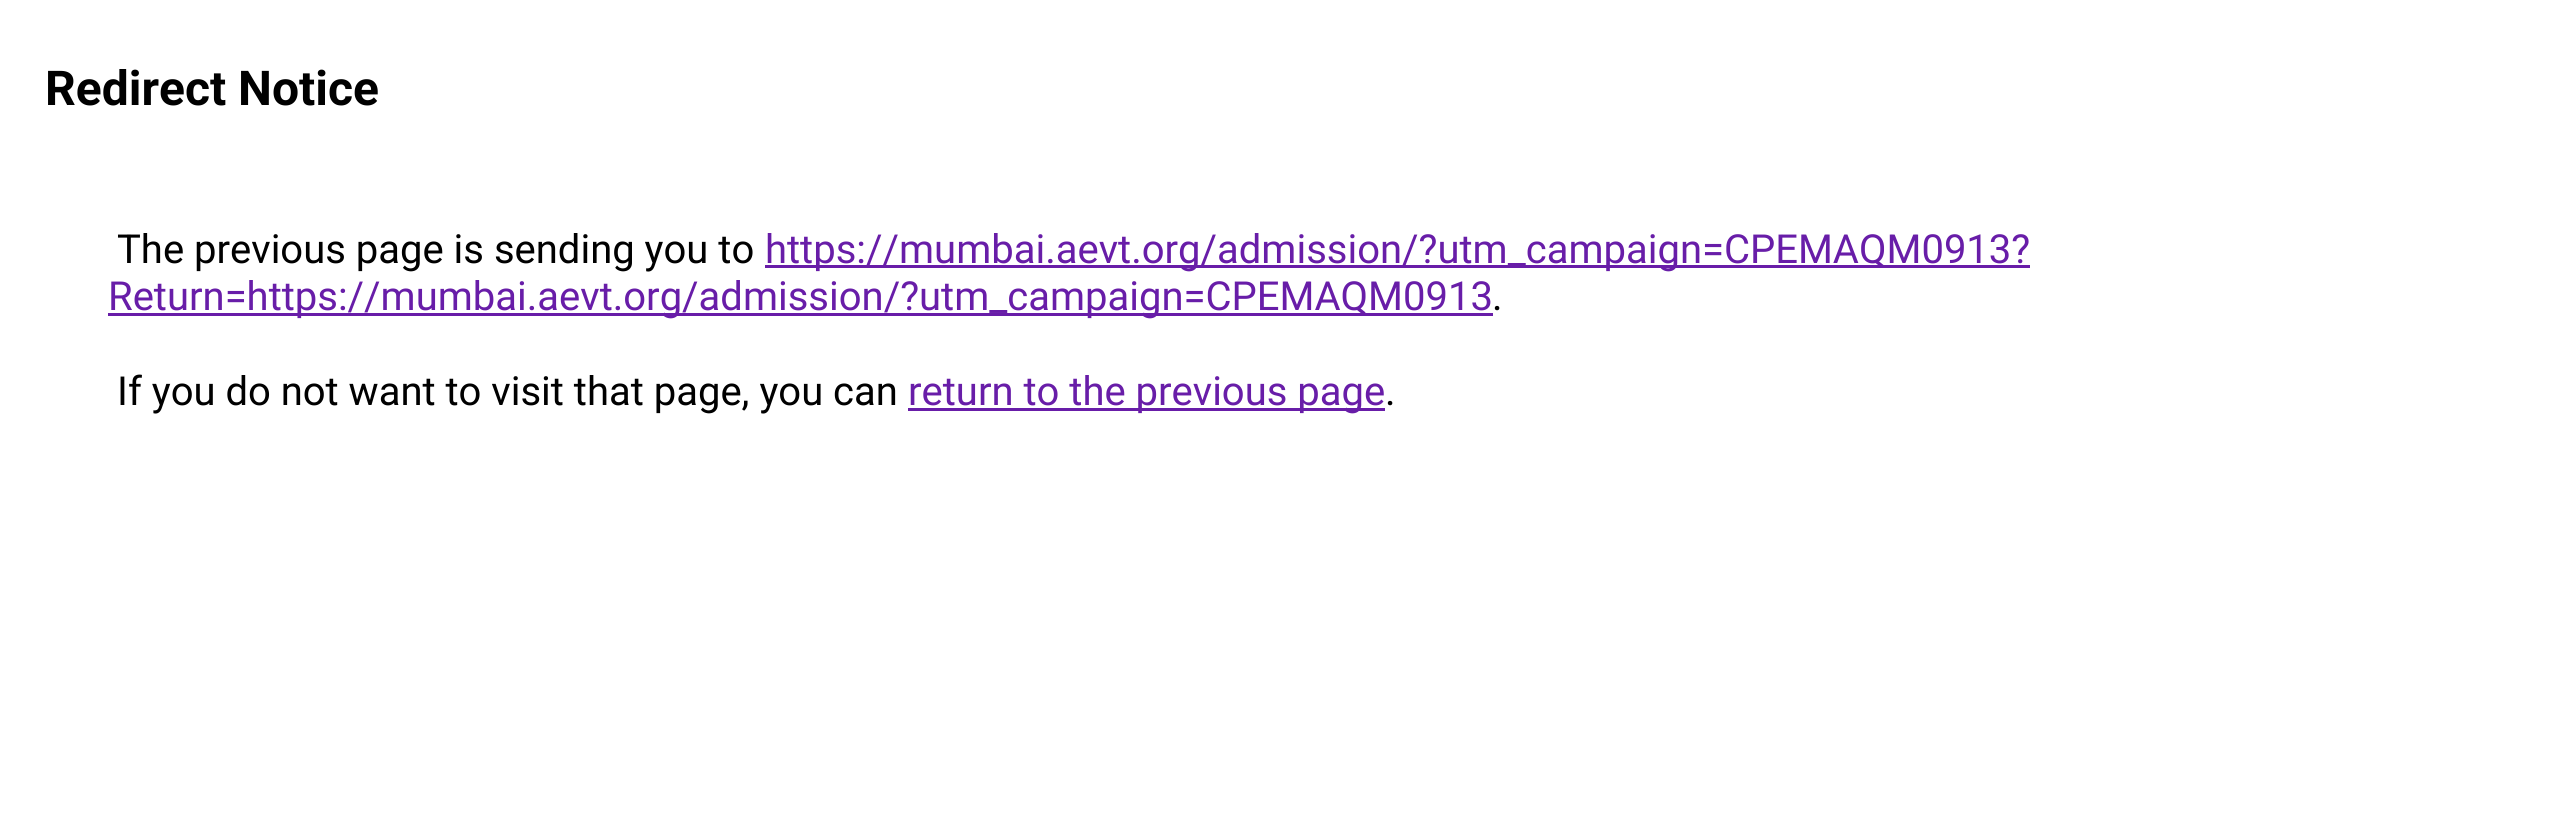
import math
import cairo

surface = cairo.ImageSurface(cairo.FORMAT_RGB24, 2552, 816)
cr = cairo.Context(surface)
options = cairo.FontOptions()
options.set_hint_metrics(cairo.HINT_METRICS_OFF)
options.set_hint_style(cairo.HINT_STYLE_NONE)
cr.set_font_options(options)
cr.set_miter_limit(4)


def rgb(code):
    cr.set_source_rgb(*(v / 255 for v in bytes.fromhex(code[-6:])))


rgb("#ffffff")
cr.paint()
for x, y, w, h, color in [
    (765, 265, 1265, 3, "#681da8"),
    (108, 313, 1385, 3, "#681da8"),
    (908, 408, 477, 3, "#681da8"),
]:
    rgb(color)
    cr.rectangle(x, y, w, h)
    cr.fill()
cr.select_font_face("Roboto", cairo.FONT_SLANT_NORMAL, cairo.FONT_WEIGHT_BOLD)
cr.set_font_size(48)
rgb("#000000")
cr.move_to(45, 105)
cr.show_text("Redirect Notice")
cr.select_font_face("Roboto")
cr.set_font_size(40)
cr.move_to(117, 263)
cr.show_text("The previous page is sending you to")
rgb("#681da8")
cr.move_to(765, 263)
cr.show_text("https://mumbai.aevt.org/admission/?utm_campaign=CPEMAQM0913?")
cr.move_to(108, 310)
cr.show_text("Return=https://mumbai.aevt.org/admission/?utm_campaign=CPEMAQM0913")
rgb("#000000")
cr.move_to(1492, 310)
cr.show_text(".")
cr.move_to(117, 405)
cr.show_text("If you do not want to visit that page, you can")
rgb("#681da8")
cr.move_to(908, 405)
cr.show_text("return to the previous page")
rgb("#000000")
cr.move_to(1385, 405)
cr.show_text(".")
surface.write_to_png("page.png")
